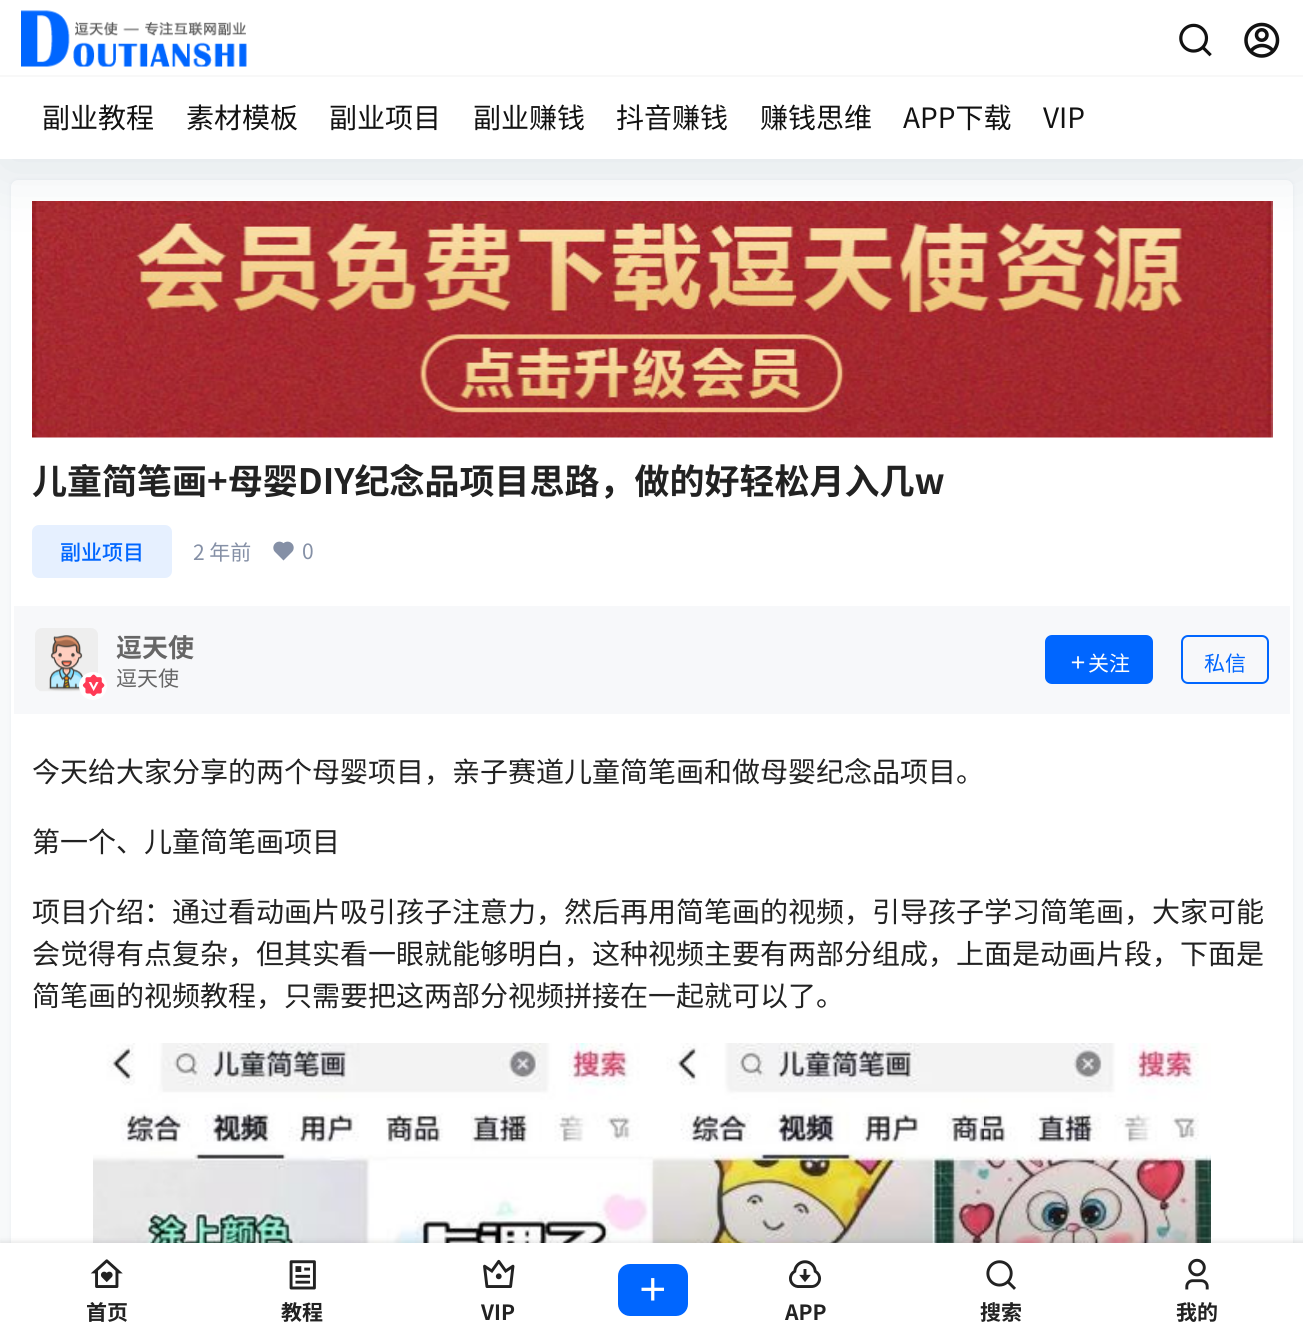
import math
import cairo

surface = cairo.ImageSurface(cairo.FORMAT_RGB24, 1303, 1338)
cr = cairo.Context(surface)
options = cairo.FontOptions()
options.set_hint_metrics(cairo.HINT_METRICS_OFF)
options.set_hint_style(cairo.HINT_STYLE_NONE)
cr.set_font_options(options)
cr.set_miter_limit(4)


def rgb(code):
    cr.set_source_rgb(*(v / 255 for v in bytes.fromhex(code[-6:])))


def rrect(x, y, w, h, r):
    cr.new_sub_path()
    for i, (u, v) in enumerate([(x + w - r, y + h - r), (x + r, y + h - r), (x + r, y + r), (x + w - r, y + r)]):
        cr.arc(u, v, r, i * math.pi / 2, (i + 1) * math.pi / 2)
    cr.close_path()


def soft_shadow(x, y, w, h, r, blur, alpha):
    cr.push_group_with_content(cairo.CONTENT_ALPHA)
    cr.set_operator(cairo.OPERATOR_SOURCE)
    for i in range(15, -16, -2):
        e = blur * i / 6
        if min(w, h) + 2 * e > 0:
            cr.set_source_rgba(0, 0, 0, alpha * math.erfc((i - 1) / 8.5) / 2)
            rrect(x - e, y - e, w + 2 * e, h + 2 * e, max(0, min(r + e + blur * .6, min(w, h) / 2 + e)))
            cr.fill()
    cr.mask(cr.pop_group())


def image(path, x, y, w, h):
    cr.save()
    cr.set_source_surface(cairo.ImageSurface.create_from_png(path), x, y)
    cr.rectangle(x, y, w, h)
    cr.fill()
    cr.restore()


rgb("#f7f9fa")
cr.paint()
rgb("#627c99")
soft_shadow(11, 180, 1282, 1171, 7, 2, 0.1)
rgb("#ffffff")
rrect(11, 180, 1282, 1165, 7)
cr.fill()
image("img/4.png", 32, 201, 1241, 237)
rgb("#113a5d")
soft_shadow(0, 9, 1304, 159, 0, 35, 0.1)
rgb("#ffffff")
cr.rectangle(0, 0, 1303, 159)
cr.fill()
image("img/1.png", 1179, 23, 33, 34)
image("img/2.png", 1244, 22, 36, 36)
rgb("#f8f8f8")
cr.rectangle(0, 75, 1303, 2)
cr.fill()
image("img/3.png", 21, 10, 226, 57)
rgb("#e6f0ff")
rrect(32, 525, 140, 53, 7)
cr.fill()
image("img/5.png", 273, 541, 21, 20)
rgb("#f7f8fa")
cr.rectangle(14, 606, 1276, 108)
cr.fill()
rgb("#eeeeee")
rrect(35, 628, 63, 63, 7)
cr.fill()
image("img/6.png", 39, 635, 55, 57)
rgb("#ffffff")
cr.arc(93, 686, 14, 0, 2 * math.pi)
cr.fill()
image("img/7.png", 82, 674, 23, 23)
rgb("#0066ff")
rrect(1046, 636, 106, 47, 6)
cr.fill_preserve()
cr.stroke()
image("img/8.png", 1071, 656, 14, 13)
rrect(1182, 636, 86, 47, 6)
cr.stroke()
image("img/9.png", 93, 1043, 1118, 200)
rgb("#1a1a1a")
soft_shadow(0, 1241, 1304, 96, 0, 2.5, 0.1)
rgb("#ffffff")
cr.rectangle(0, 1243, 1303, 95)
cr.fill()
image("img/10.png", 90, 1259, 33, 29)
image("img/11.png", 289, 1260, 27, 30)
image("img/12.png", 483, 1259, 32, 29)
rgb("#0066ff")
rrect(618, 1264, 70, 52, 12)
cr.fill()
image("img/13.png", 641, 1278, 23, 23)
image("img/14.png", 789, 1260, 33, 28)
image("img/15.png", 986, 1260, 30, 30)
image("img/16.png", 1185, 1258, 24, 32)
cr.select_font_face("Noto Sans CJK SC")
cr.set_font_size(28)
rgb("#121212")
for x, y, s in [
    (42, 128, "副业教程"),
    (186, 128, "素材模板"),
    (329, 128, "副业项目"),
    (473, 128, "副业赚钱"),
    (616, 128, "抖音赚钱"),
    (760, 128, "赚钱思维"),
    (903, 128, "APP下载"),
    (1043, 128, "VIP"),
]:
    cr.move_to(x, y)
    cr.show_text(s)
cr.select_font_face("Noto Sans CJK SC", cairo.FONT_SLANT_NORMAL, cairo.FONT_WEIGHT_BOLD)
cr.set_font_size(35)
rgb("#222222")
cr.move_to(32, 494)
cr.show_text("儿童简笔画+母婴DIY纪念品项目思路，做的好轻松月入几w")
cr.select_font_face("Noto Sans CJK SC Medium")
cr.set_font_size(21)
rgb("#0066ff")
cr.move_to(60, 560)
cr.show_text("副业项目")
cr.select_font_face("Noto Sans CJK SC")
rgb("#8590a6")
cr.move_to(193, 560)
cr.show_text("2 年前")
cr.move_to(302, 559)
cr.show_text("0")
cr.select_font_face("Noto Sans CJK SC", cairo.FONT_SLANT_NORMAL, cairo.FONT_WEIGHT_BOLD)
cr.set_font_size(26)
rgb("#666666")
cr.move_to(116, 657)
cr.show_text("逗天使")
cr.select_font_face("Noto Sans CJK SC")
cr.set_font_size(21)
cr.move_to(116, 686)
cr.show_text("逗天使")
rgb("#ffffff")
cr.move_to(1088, 671)
cr.show_text("关注")
rgb("#0066ff")
cr.move_to(1204, 671)
cr.show_text("私信")
cr.set_font_size(28)
rgb("#222222")
for x, y, s in [
    (32, 782, "今天给大家分享的两个母婴项目，亲子赛道儿童简笔画和做母婴纪念品项目。"),
    (32, 852, "第一个、儿童简笔画项目"),
    (32, 922, "项目介绍：通过看动画片吸引孩子注意力，然后再用简笔画的视频，引导孩子学习简笔画，大家可能"),
    (32, 964, "会觉得有点复杂，但其实看一眼就能够明白，这种视频主要有两部分组成，上面是动画片段，下面是"),
    (32, 1006, "简笔画的视频教程，只需要把这两部分视频拼接在一起就可以了。"),
]:
    cr.move_to(x, y)
    cr.show_text(s)
cr.select_font_face("Noto Sans CJK SC", cairo.FONT_SLANT_NORMAL, cairo.FONT_WEIGHT_BOLD)
cr.set_font_size(21)
for x, y, s in [
    (86, 1320, "首页"),
    (281, 1320, "教程"),
    (481, 1320, "VIP"),
    (785, 1320, "APP"),
    (980, 1320, "搜索"),
    (1176, 1320, "我的"),
]:
    cr.move_to(x, y)
    cr.show_text(s)
surface.write_to_png("page.png")
